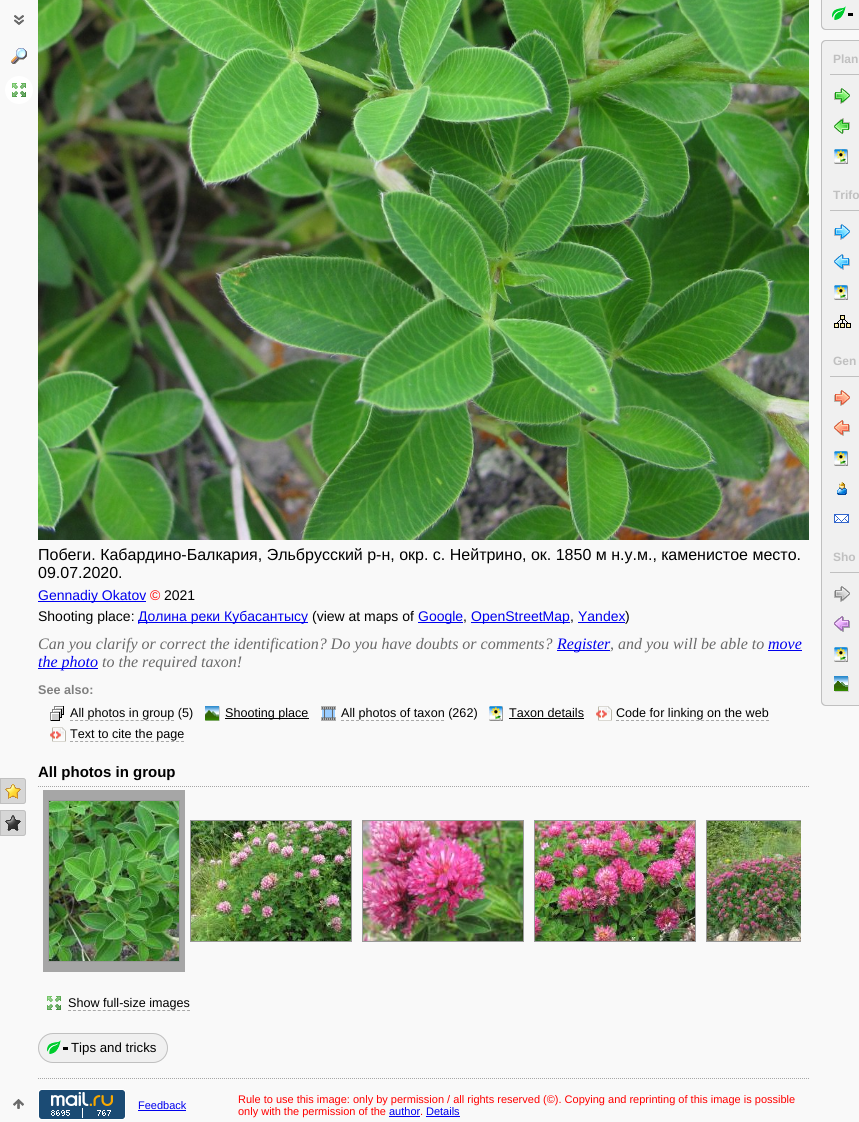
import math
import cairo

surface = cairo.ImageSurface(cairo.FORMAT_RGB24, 859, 1122)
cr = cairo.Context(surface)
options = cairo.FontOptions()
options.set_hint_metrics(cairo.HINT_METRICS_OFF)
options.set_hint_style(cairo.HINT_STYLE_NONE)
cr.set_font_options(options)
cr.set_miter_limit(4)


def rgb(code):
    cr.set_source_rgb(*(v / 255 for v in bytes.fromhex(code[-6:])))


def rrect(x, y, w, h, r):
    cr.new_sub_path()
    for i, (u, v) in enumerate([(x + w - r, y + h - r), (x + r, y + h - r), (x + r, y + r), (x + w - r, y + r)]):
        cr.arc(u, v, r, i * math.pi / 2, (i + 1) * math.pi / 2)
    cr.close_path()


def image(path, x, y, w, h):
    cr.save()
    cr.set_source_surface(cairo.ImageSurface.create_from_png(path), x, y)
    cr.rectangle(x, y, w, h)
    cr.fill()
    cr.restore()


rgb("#f9f9f9")
cr.paint()
image("img/1.png", 14, 15, 10, 10)
image("img/2.png", 11, 48, 16, 16)
rgb("#ffffff")
cr.arc(19, 90, 14, 0, 2 * math.pi)
cr.fill()
image("img/3.png", 12, 83, 14, 14)
rgb("#d6d6d6")
cr.new_path()
cr.move_to(0, 778)
cr.line_to(23, 778)
cr.curve_to(24.5, 778, 26, 779.5, 26, 781)
cr.line_to(26, 801)
cr.curve_to(26, 802.5, 24.5, 804, 23, 804)
cr.line_to(0, 804)
cr.close_path()
cr.fill()
image("img/4.png", 5, 784, 16, 15)
cr.new_path()
cr.move_to(0.5, 778.5)
cr.line_to(23, 778.5)
cr.curve_to(24.5, 778.5, 25.5, 779.5, 25.5, 781)
cr.line_to(25.5, 801)
cr.curve_to(25.5, 802.5, 24.5, 803.5, 23, 803.5)
cr.line_to(0.5, 803.5)
cr.close_path()
rgb("#c0c0c0")
cr.set_line_width(1)
cr.stroke()
rgb("#d6d6d6")
cr.new_path()
cr.move_to(0, 810)
cr.line_to(23, 810)
cr.curve_to(24.5, 810, 26, 811.5, 26, 813)
cr.line_to(26, 833)
cr.curve_to(26, 834.5, 24.5, 836, 23, 836)
cr.line_to(0, 836)
cr.close_path()
cr.fill()
image("img/5.png", 5, 815, 16, 16)
cr.new_path()
cr.move_to(0.5, 810.5)
cr.line_to(23, 810.5)
cr.curve_to(24.5, 810.5, 25.5, 811.5, 25.5, 813)
cr.line_to(25.5, 833)
cr.curve_to(25.5, 834.5, 24.5, 835.5, 23, 835.5)
cr.line_to(0.5, 835.5)
cr.close_path()
rgb("#c0c0c0")
cr.stroke()
rgb("#f0f0f0")
cr.new_path()
cr.move_to(821, 0)
cr.line_to(859, 0)
cr.line_to(859, 30)
cr.line_to(826, 30)
cr.curve_to(823, 30, 821, 28, 821, 25)
cr.close_path()
cr.fill()
image("img/6.png", 832, 6, 14, 14)
rgb("#c0c0c0")
cr.set_fill_rule(cairo.FILL_RULE_EVEN_ODD)
cr.new_path()
cr.move_to(821, 0)
cr.line_to(859, 0)
cr.line_to(859, 30)
cr.line_to(826, 30)
cr.curve_to(823, 30, 821, 28, 821, 25)
cr.close_path()
cr.move_to(822, 0)
cr.line_to(859, 0)
cr.line_to(859, 29)
cr.line_to(826, 29)
cr.curve_to(824, 29, 822, 27, 822, 25)
cr.close_path()
cr.fill()
rgb("#000000")
cr.rectangle(848, 13, 5, 3)
cr.fill()
rgb("#f0f0f0")
cr.new_path()
cr.move_to(826, 40)
cr.line_to(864, 40)
cr.line_to(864, 706)
cr.line_to(826, 706)
cr.curve_to(823, 706, 821, 704, 821, 701)
cr.line_to(821, 45)
cr.curve_to(821, 42, 823, 40, 826, 40)
cr.close_path()
cr.fill()
rgb("#c0c0c0")
cr.new_path()
cr.move_to(826, 40)
cr.line_to(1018, 40)
cr.line_to(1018, 706)
cr.line_to(826, 706)
cr.curve_to(823, 706, 821, 704, 821, 701)
cr.line_to(821, 45)
cr.curve_to(821, 42, 823, 40, 826, 40)
cr.close_path()
cr.move_to(826, 41)
cr.line_to(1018, 41)
cr.line_to(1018, 705)
cr.line_to(826, 705)
cr.curve_to(824, 705, 822, 703, 822, 701)
cr.line_to(822, 45)
cr.curve_to(822, 43, 824, 41, 826, 41)
cr.close_path()
cr.fill()
cr.rectangle(830, 74, 29, 1)
cr.fill()
image("img/7.png", 834, 88, 16, 16)
image("img/8.png", 834, 118, 16, 16)
image("img/9.png", 834, 149, 14, 15)
cr.rectangle(830, 210, 29, 1)
cr.fill()
image("img/10.png", 834, 224, 16, 16)
image("img/11.png", 834, 254, 16, 16)
image("img/9.png", 834, 285, 14, 15)
image("img/12.png", 834, 315, 17, 13)
cr.rectangle(830, 376, 29, 1)
cr.fill()
image("img/13.png", 834, 390, 16, 16)
image("img/14.png", 834, 420, 16, 16)
image("img/9.png", 834, 451, 14, 15)
image("img/15.png", 837, 482, 10, 13)
image("img/16.png", 834, 514, 15, 9)
cr.rectangle(830, 572, 29, 1)
cr.fill()
image("img/17.png", 834, 586, 16, 16)
image("img/18.png", 834, 616, 16, 16)
image("img/9.png", 834, 647, 14, 15)
image("img/19.png", 834, 676, 15, 16)
image("img/20.png", 38, 0, 771, 540)
for x, y, w, h, color in [
    (38, 601, 108, 1, "#0000ee"),
    (138, 622, 170, 1, "#0000ee"),
    (418, 622, 45, 1, "#0000ee"),
    (471, 622, 99, 1, "#0000ee"),
    (578, 622, 47, 1, "#0000ee"),
    (557, 650, 53, 1, "#0000ee"),
    (768, 650, 34, 1, "#0000ee"),
    (38, 668, 60, 1, "#0000ee"),
]:
    rgb(color)
    cr.rectangle(x, y, w, h)
    cr.fill()
image("img/21.png", 50, 706, 14, 15)
cr.new_path()
cr.move_to(70, 720.5)
cr.line_to(174, 720.5)
rgb("#a9a9a9")
cr.set_dash([3, 2.05])
cr.stroke()
image("img/22.png", 205, 706, 15, 15)
rgb("#000000")
cr.rectangle(225, 718, 84, 1)
cr.fill()
image("img/23.png", 321, 706, 15, 15)
cr.new_path()
cr.move_to(341, 720.5)
cr.line_to(444, 720.5)
rgb("#a9a9a9")
cr.set_dash([3, 2])
cr.stroke()
image("img/9.png", 489, 706, 14, 15)
rgb("#000000")
cr.rectangle(509, 718, 75, 1)
cr.fill()
image("img/24.png", 596, 706, 16, 15)
cr.new_path()
cr.move_to(616, 720.5)
cr.line_to(769, 720.5)
rgb("#a9a9a9")
cr.stroke()
image("img/24.png", 50, 727, 16, 15)
cr.new_path()
cr.move_to(70, 741.5)
cr.line_to(184, 741.5)
cr.set_dash([3, 2.05])
cr.stroke()
cr.new_path()
cr.move_to(38, 786.5)
cr.line_to(809, 786.5)
rgb("#a6a6a6")
cr.set_dash([1, 1])
cr.stroke()
cr.rectangle(43, 790, 142, 182)
cr.fill()
cr.rectangle(48.5, 800.5, 131, 161)
rgb("#999999")
cr.set_dash([])
cr.stroke()
image("img/25.png", 49, 801, 130, 160)
cr.rectangle(190.5, 820.5, 161, 121)
cr.stroke()
image("img/26.png", 191, 821, 160, 120)
cr.rectangle(362.5, 820.5, 161, 121)
cr.stroke()
image("img/27.png", 363, 821, 160, 120)
cr.rectangle(534.5, 820.5, 161, 121)
cr.stroke()
image("img/28.png", 535, 821, 160, 120)
cr.save()
cr.set_fill_rule(cairo.FILL_RULE_WINDING)
cr.rectangle(38, 790, 763, 200)
cr.clip()
cr.rectangle(706.5, 820.5, 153, 121)
cr.stroke()
cr.restore()
image("img/29.png", 707, 821, 94, 120)
image("img/30.png", 47, 996, 14, 14)
cr.new_path()
cr.move_to(68, 1010.5)
cr.line_to(190, 1010.5)
rgb("#a9a9a9")
cr.set_dash([3, 1.96])
cr.stroke()
rgb("#f0f0f0")
rrect(38, 1033, 130, 30, 15)
cr.fill()
rgb("#000000")
cr.rectangle(63, 1047, 5, 3)
cr.fill()
rrect(38.5, 1033.5, 129, 29, 14.5)
rgb("#c0c0c0")
cr.set_dash([])
cr.stroke()
image("img/6.png", 47, 1040, 14, 14)
cr.new_path()
cr.move_to(38, 1078.5)
cr.line_to(809, 1078.5)
rgb("#a6a6a6")
cr.set_dash([1, 1])
cr.stroke()
image("img/31.png", 13, 1099, 11, 10)
image("img/32.png", 38, 1089, 88, 31)
for x, y, w, h, color in [
    (138, 1110, 48, 1, "#0000ee"),
    (389, 1116, 31, 1, "#0000ee"),
    (426, 1116, 34, 1, "#0000ee"),
]:
    rgb(color)
    cr.rectangle(x, y, w, h)
    cr.fill()
cr.select_font_face("Liberation Sans", cairo.FONT_SLANT_NORMAL, cairo.FONT_WEIGHT_BOLD)
cr.set_font_size(12)
rgb("#c0c0c0")
for x, y, s in [
    (833, 63, "Plan"),
    (833, 199, "Trifo"),
    (833, 365, "Gen"),
    (833, 561, "Sho"),
]:
    cr.move_to(x, y)
    cr.show_text(s)
cr.select_font_face("Liberation Sans")
cr.set_font_size(16)
rgb("#000000")
cr.move_to(38, 560)
cr.show_text("Побеги. Кабардино-Балкария, Эльбрусский р-н, окр. с. Нейтрино, ок. 1850 м н.у.м., каменистое место.")
cr.move_to(38, 578)
cr.show_text("09.07.2020.")
cr.set_font_size(14)
rgb("#0000ee")
cr.move_to(38, 600)
cr.show_text("Gennadiy Okatov")
rgb("#ff0000")
cr.move_to(150, 600)
cr.show_text("©")
rgb("#000000")
cr.move_to(164, 600)
cr.show_text("2021")
cr.move_to(38, 621)
cr.show_text("Shooting place:")
rgb("#0000ee")
cr.move_to(138, 621)
cr.show_text("Долина реки Кубасантысу")
rgb("#000000")
cr.move_to(312, 621)
cr.show_text("(view at maps of")
rgb("#0000ee")
cr.move_to(418, 621)
cr.show_text("Google")
rgb("#000000")
cr.move_to(463, 621)
cr.show_text(",")
rgb("#0000ee")
cr.move_to(471, 621)
cr.show_text("OpenStreetMap")
rgb("#000000")
cr.move_to(570, 621)
cr.show_text(",")
rgb("#0000ee")
cr.move_to(578, 621)
cr.show_text("Yandex")
rgb("#000000")
cr.move_to(625, 621)
cr.show_text(")")
cr.select_font_face("Liberation Serif", cairo.FONT_SLANT_ITALIC)
cr.set_font_size(16)
rgb("#696969")
cr.move_to(38, 649)
cr.show_text("Can you clarify or correct the identification? Do you have doubts or comments?")
rgb("#0000ee")
cr.move_to(557, 649)
cr.show_text("Register")
rgb("#696969")
cr.move_to(610, 649)
cr.show_text(", and you will be able to")
rgb("#0000ee")
cr.move_to(768, 649)
cr.show_text("move")
cr.move_to(38, 667)
cr.show_text("the photo")
rgb("#696969")
cr.move_to(102, 667)
cr.show_text("to the required taxon!")
cr.select_font_face("Liberation Sans", cairo.FONT_SLANT_NORMAL, cairo.FONT_WEIGHT_BOLD)
cr.set_font_size(12.6)
rgb("#808080")
cr.move_to(38, 694)
cr.show_text("See also:")
cr.select_font_face("Liberation Sans")
rgb("#000000")
for x, y, s in [
    (70, 717, "All photos in group (5)"),
    (225, 717, "Shooting place"),
    (341, 717, "All photos of taxon (262)"),
    (509, 717, "Taxon details"),
    (616, 717, "Code for linking on the web"),
    (70, 738, "Text to cite the page"),
]:
    cr.move_to(x, y)
    cr.show_text(s)
cr.select_font_face("Liberation Sans", cairo.FONT_SLANT_NORMAL, cairo.FONT_WEIGHT_BOLD)
cr.set_font_size(15)
cr.move_to(38, 777)
cr.show_text("All photos in group")
cr.select_font_face("Liberation Sans")
cr.set_font_size(12.6)
cr.move_to(68, 1007)
cr.show_text("Show full-size images")
cr.set_font_size(13.25)
cr.move_to(71, 1052)
cr.show_text("Tips and tricks")
cr.set_font_size(11)
rgb("#0000ee")
cr.move_to(138, 1109)
cr.show_text("Feedback")
rgb("#ff0000")
cr.move_to(238, 1103)
cr.show_text("Rule to use this image: only by permission / all rights reserved (©). Copying and reprinting of this image is possible")
cr.move_to(238, 1115)
cr.show_text("only with the permission of the")
rgb("#0000ee")
cr.move_to(389, 1115)
cr.show_text("author")
rgb("#ff0000")
cr.move_to(420, 1115)
cr.show_text(".")
rgb("#0000ee")
cr.move_to(426, 1115)
cr.show_text("Details")
surface.write_to_png("page.png")
